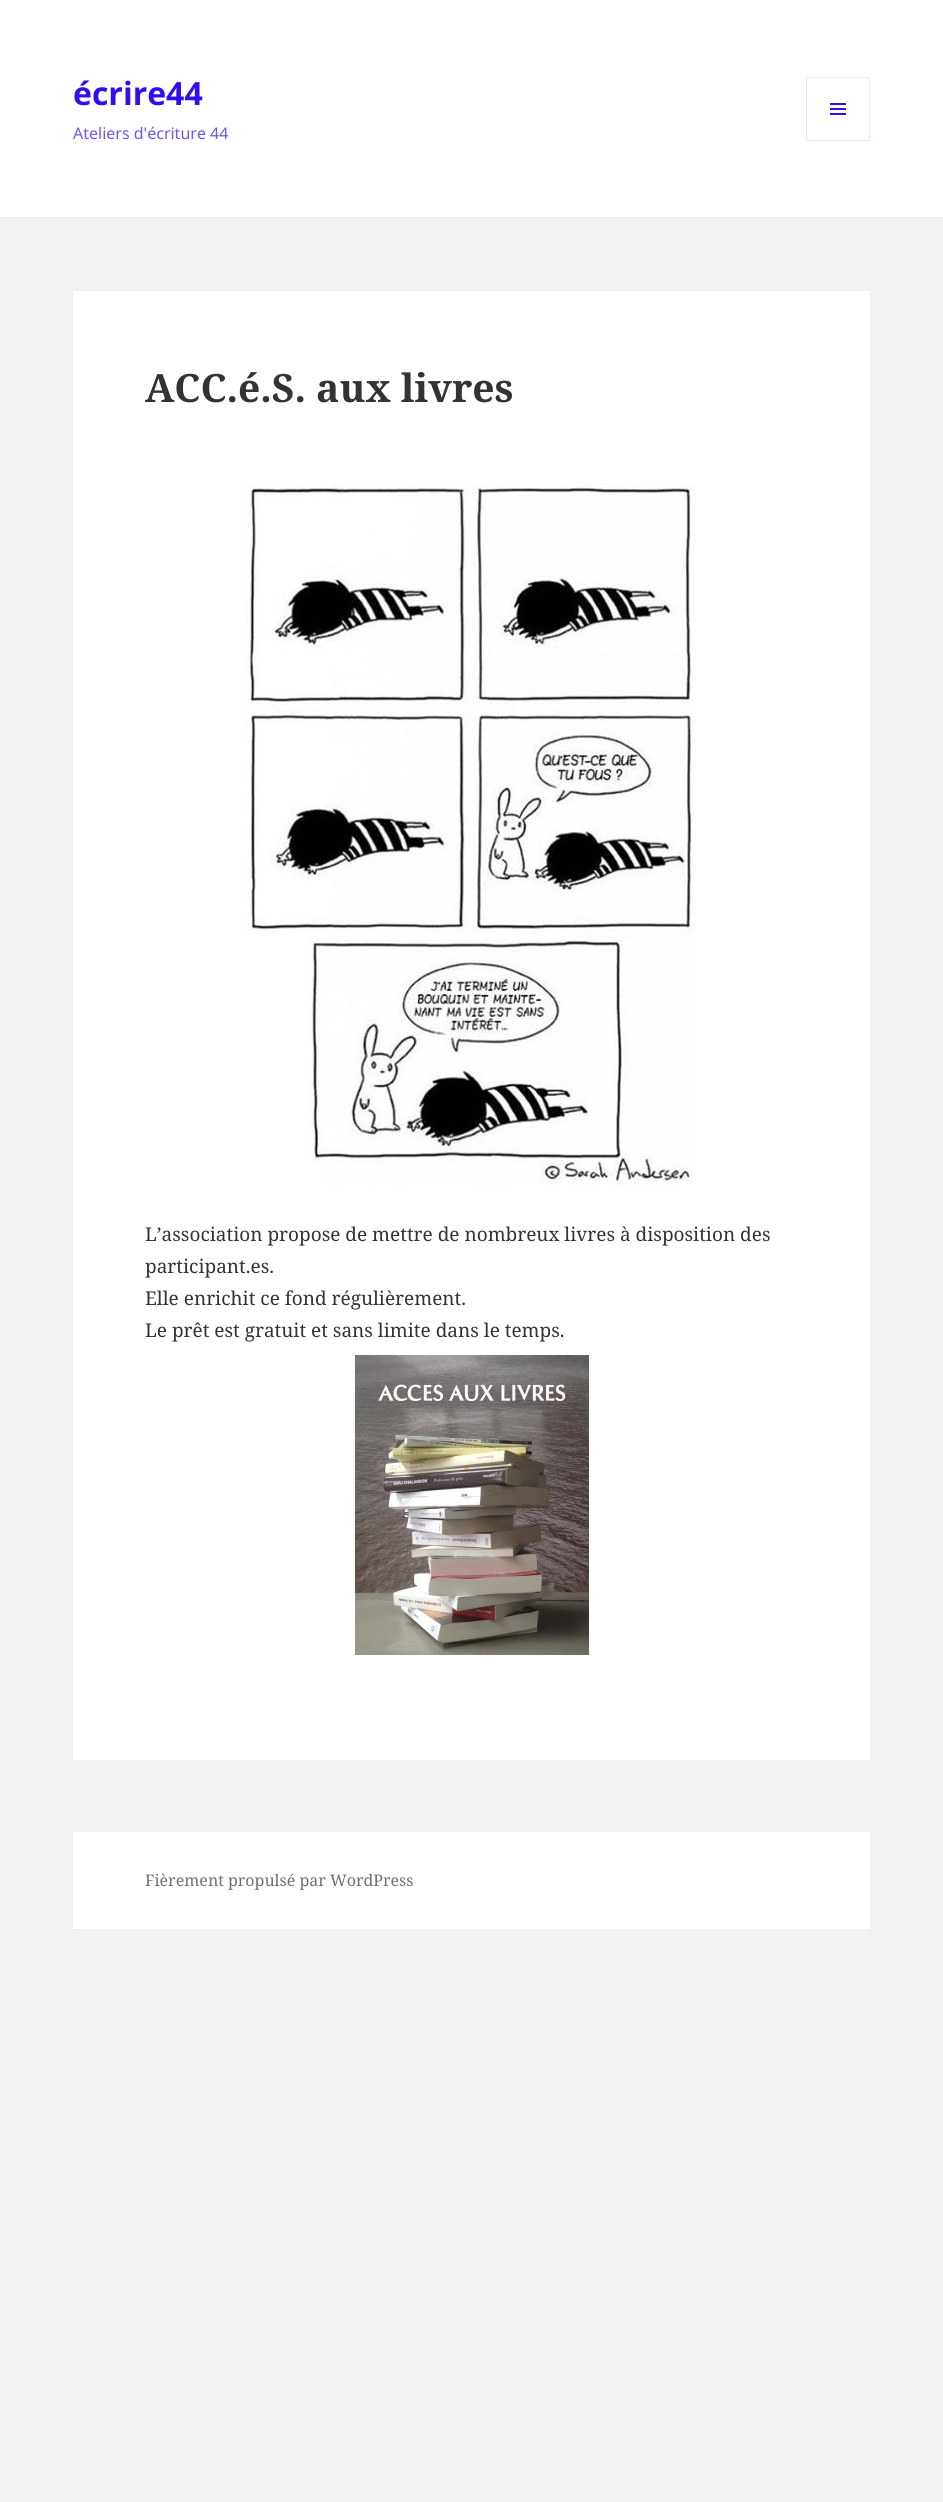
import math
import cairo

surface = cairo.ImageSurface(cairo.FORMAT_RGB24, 943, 2502)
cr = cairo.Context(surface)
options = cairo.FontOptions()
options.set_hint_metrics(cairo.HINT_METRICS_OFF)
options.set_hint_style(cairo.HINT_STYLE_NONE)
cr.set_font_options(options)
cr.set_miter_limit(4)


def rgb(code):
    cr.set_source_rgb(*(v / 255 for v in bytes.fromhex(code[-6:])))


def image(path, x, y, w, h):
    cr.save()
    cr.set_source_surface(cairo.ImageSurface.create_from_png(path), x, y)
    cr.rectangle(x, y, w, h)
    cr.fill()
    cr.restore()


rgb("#f1f1f1")
cr.paint()
rgb("#ffffff")
cr.rectangle(0, 0, 943, 217)
cr.fill()
rgb("#ebebeb")
cr.rectangle(0, 217, 943, 1)
cr.fill()
cr.rectangle(806.5, 77.5, 63, 63)
rgb("#ebe7fd")
cr.set_line_width(1)
cr.stroke()
image("img/1.png", 830, 103, 16, 12)
rgb("#ffffff")
cr.rectangle(73, 291, 797, 1469)
cr.fill()
image("img/2.png", 245, 483, 450, 704)
image("img/3.png", 355, 1355, 234, 300)
cr.rectangle(73, 1832, 797, 97)
cr.fill()
cr.select_font_face("Noto Sans", cairo.FONT_SLANT_NORMAL, cairo.FONT_WEIGHT_BOLD)
cr.set_font_size(32)
rgb("#350bef")
cr.move_to(73, 105)
cr.show_text("écrire44")
cr.select_font_face("Noto Sans")
cr.set_font_size(16)
rgb("#7254f4")
cr.move_to(73, 139)
cr.show_text("Ateliers d'écriture 44")
cr.select_font_face("Noto Serif", cairo.FONT_SLANT_NORMAL, cairo.FONT_WEIGHT_BOLD)
cr.set_font_size(39)
rgb("#333333")
cr.move_to(145, 402)
cr.show_text("ACC.é.S. aux livres")
cr.select_font_face("Noto Serif")
cr.set_font_size(19)
for x, y, s in [
    (145, 1241, "L’association propose de mettre de nombreux livres à disposition des"),
    (145, 1273, "participant.es."),
    (145, 1305, "Elle enrichit ce fond régulièrement."),
    (145, 1337, "Le prêt est gratuit et sans limite dans le temps."),
]:
    cr.move_to(x, y)
    cr.show_text(s)
cr.set_font_size(16)
rgb("#707070")
cr.move_to(145, 1886)
cr.show_text("Fièrement propulsé par WordPress")
surface.write_to_png("page.png")
